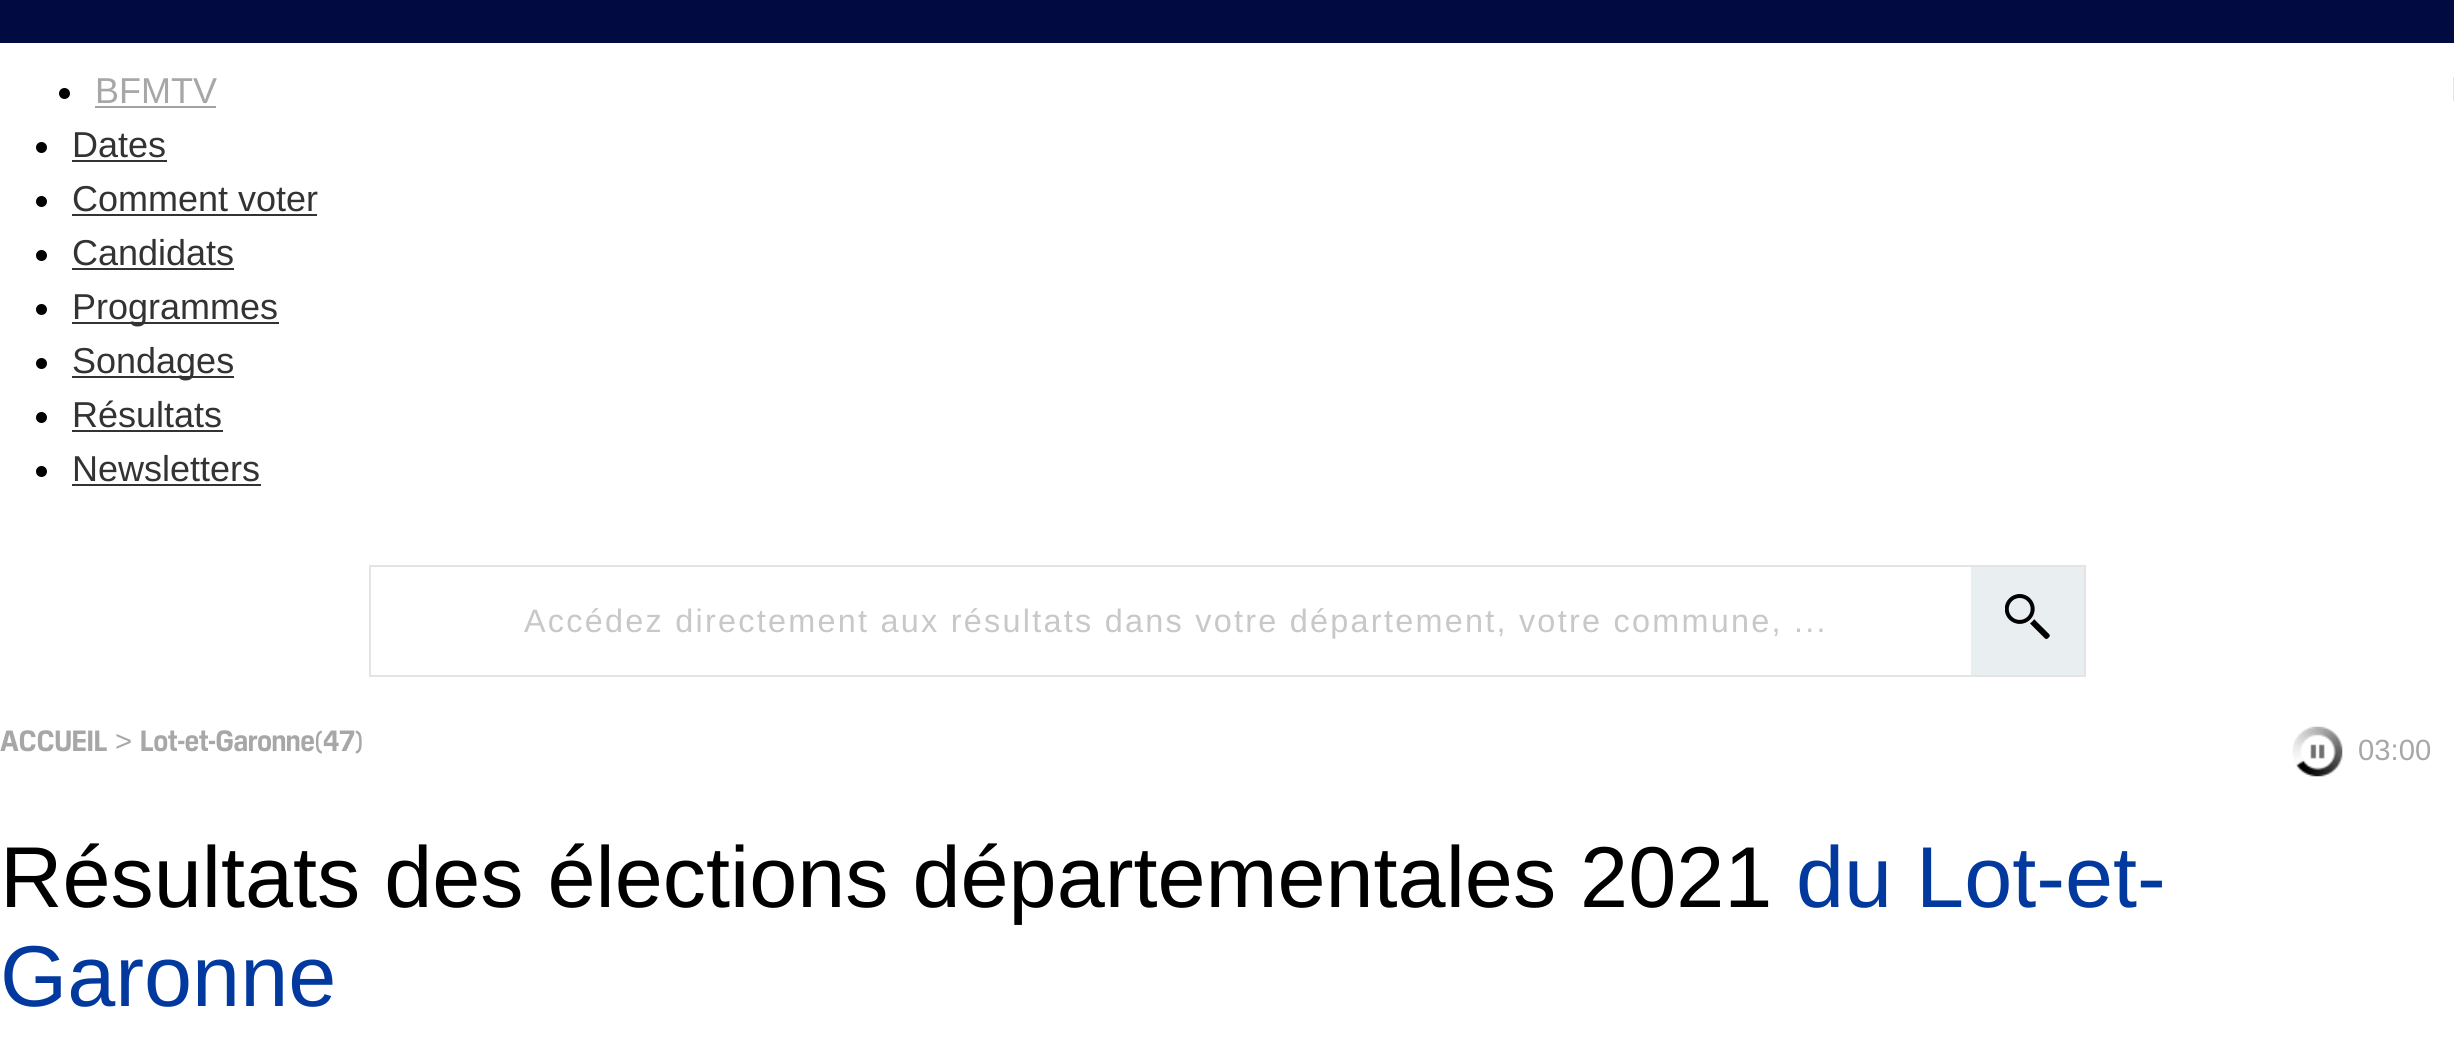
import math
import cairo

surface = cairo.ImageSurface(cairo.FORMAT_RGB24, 2454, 1062)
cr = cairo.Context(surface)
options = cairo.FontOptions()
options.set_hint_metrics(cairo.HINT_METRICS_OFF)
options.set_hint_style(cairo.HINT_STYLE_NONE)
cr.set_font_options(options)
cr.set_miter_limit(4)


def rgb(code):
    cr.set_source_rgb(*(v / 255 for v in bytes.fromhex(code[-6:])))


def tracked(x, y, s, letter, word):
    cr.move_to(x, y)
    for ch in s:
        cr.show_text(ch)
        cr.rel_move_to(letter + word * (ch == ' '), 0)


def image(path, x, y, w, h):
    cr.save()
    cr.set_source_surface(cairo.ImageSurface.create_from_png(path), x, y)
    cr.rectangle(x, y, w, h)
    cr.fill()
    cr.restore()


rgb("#ffffff")
cr.paint()
rgb("#010b41")
cr.rectangle(0, 0, 2454, 43)
cr.fill()
rgb("#000000")
cr.arc(64.5, 93.5, 5.5, 0, 2 * math.pi)
cr.fill()
rgb("#a2a2a2")
cr.rectangle(95, 106, 121, 2)
cr.fill()
rgb("#e4e4e4")
cr.rectangle(2453, 77, 1, 24)
cr.fill()
rgb("#000000")
cr.arc(41.5, 147.5, 5.5, 0, 2 * math.pi)
cr.fill()
rgb("#333333")
cr.rectangle(72, 160, 95, 2)
cr.fill()
rgb("#000000")
cr.arc(41.5, 201.5, 5.5, 0, 2 * math.pi)
cr.fill()
rgb("#333333")
cr.rectangle(72, 214, 245, 2)
cr.fill()
rgb("#000000")
cr.arc(41.5, 255.5, 5.5, 0, 2 * math.pi)
cr.fill()
rgb("#333333")
cr.rectangle(72, 268, 162, 2)
cr.fill()
rgb("#000000")
cr.arc(41.5, 309.5, 5.5, 0, 2 * math.pi)
cr.fill()
rgb("#333333")
cr.rectangle(72, 322, 207, 2)
cr.fill()
rgb("#000000")
cr.arc(41.5, 363.5, 5.5, 0, 2 * math.pi)
cr.fill()
rgb("#333333")
cr.rectangle(72, 376, 162, 2)
cr.fill()
rgb("#000000")
cr.arc(41.5, 417.5, 5.5, 0, 2 * math.pi)
cr.fill()
rgb("#333333")
cr.rectangle(72, 430, 151, 2)
cr.fill()
rgb("#000000")
cr.arc(41.5, 471.5, 5.5, 0, 2 * math.pi)
cr.fill()
rgb("#333333")
cr.rectangle(72, 484, 189, 2)
cr.fill()
cr.rectangle(370, 566, 1715, 110)
rgb("#e4e4e4")
cr.stroke()
rgb("#e9eff1")
cr.rectangle(1971, 567, 113, 108)
cr.fill()
image("img/1.png", 2005, 594, 45, 45)
image("img/2.png", 2292, 726, 51, 51)
cr.select_font_face("Liberation Sans")
cr.set_font_size(36)
rgb("#a7a7a7")
cr.move_to(95, 103)
cr.show_text("BFMTV")
rgb("#333333")
for x, y, s in [
    (72, 157, "Dates"),
    (72, 211, "Comment voter"),
    (72, 265, "Candidats"),
    (72, 319, "Programmes"),
    (72, 373, "Sondages"),
    (72, 427, "Résultats"),
    (72, 481, "Newsletters"),
]:
    cr.move_to(x, y)
    cr.show_text(s)
cr.set_font_size(32.4)
rgb("#c8c8c8")
tracked(524, 632, "Accédez directement aux résultats dans votre département, votre commune, ...", 2.25, 0)
cr.select_font_face("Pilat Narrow", cairo.FONT_SLANT_NORMAL, cairo.FONT_WEIGHT_BOLD)
cr.set_font_size(29.25)
rgb("#a7a7a7")
cr.move_to(0, 751)
cr.show_text("ACCUEIL")
cr.select_font_face("Liberation Sans")
cr.move_to(115, 751)
cr.show_text(">")
cr.select_font_face("Pilat Narrow", cairo.FONT_SLANT_NORMAL, cairo.FONT_WEIGHT_BOLD)
cr.move_to(140, 751)
cr.show_text("Lot-et-Garonne(47)")
cr.select_font_face("Liberation Sans")
cr.move_to(2358, 760)
cr.show_text("03:00")
cr.set_font_size(86.4)
rgb("#000000")
cr.move_to(0, 907)
cr.show_text("Résultats des élections départementales 2021")
rgb("#02399e")
cr.move_to(1796, 907)
cr.show_text("du Lot-et-")
cr.move_to(0, 1006)
cr.show_text("Garonne")
surface.write_to_png("page.png")
